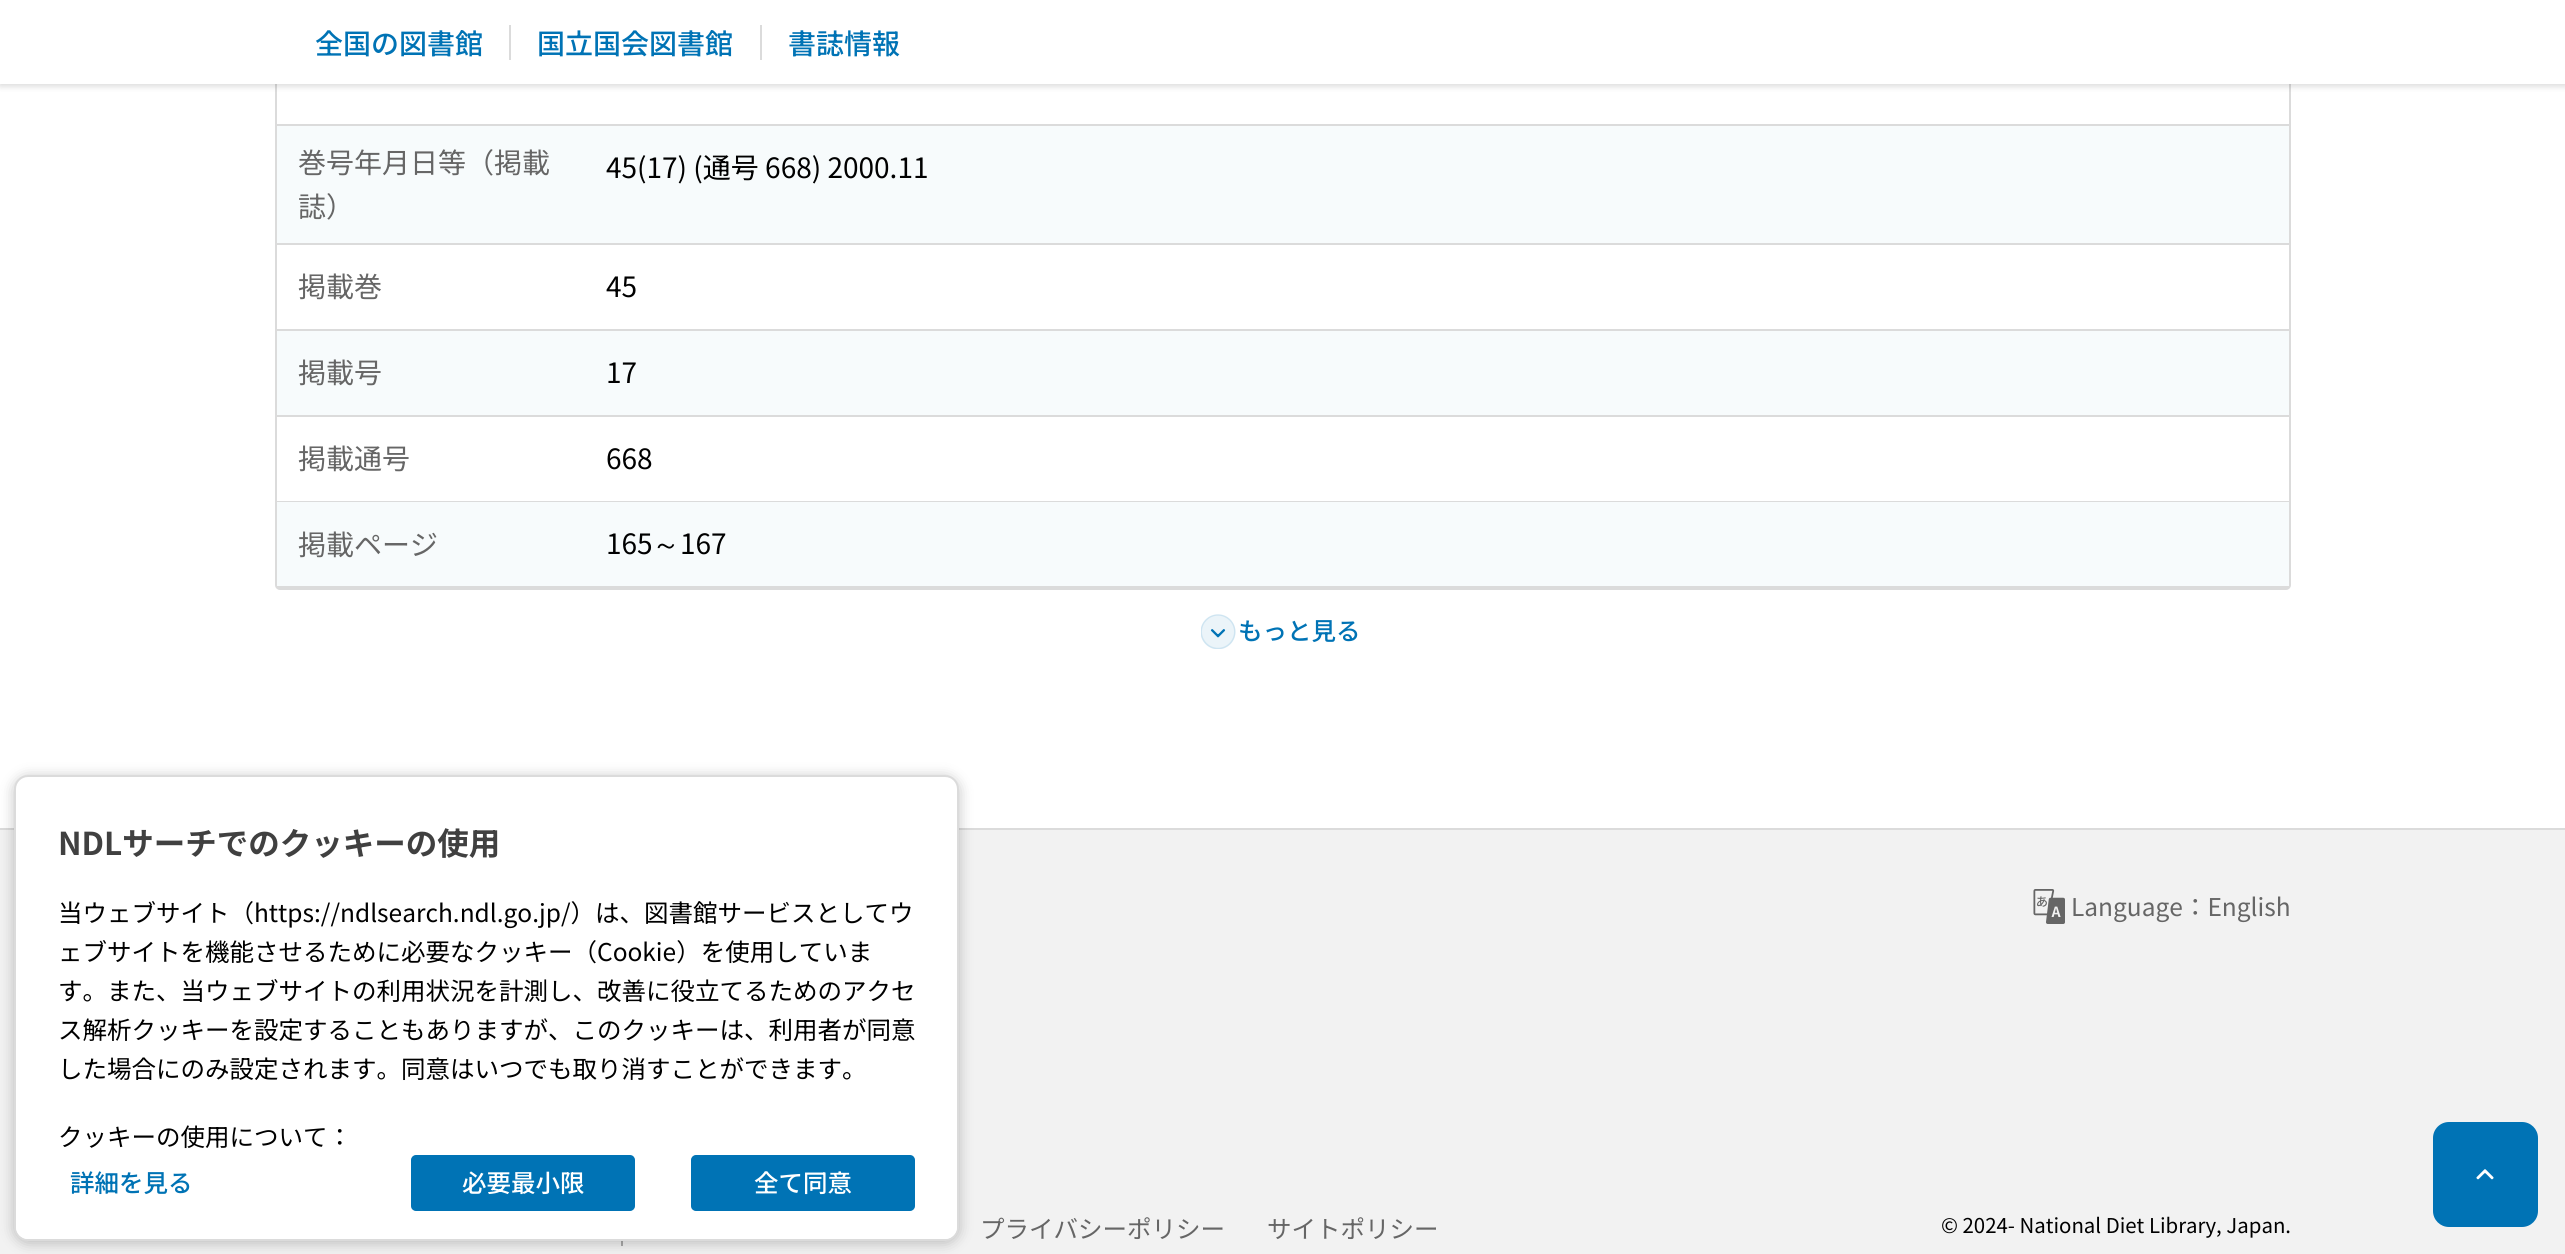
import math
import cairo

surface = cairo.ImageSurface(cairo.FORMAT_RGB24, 2565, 1254)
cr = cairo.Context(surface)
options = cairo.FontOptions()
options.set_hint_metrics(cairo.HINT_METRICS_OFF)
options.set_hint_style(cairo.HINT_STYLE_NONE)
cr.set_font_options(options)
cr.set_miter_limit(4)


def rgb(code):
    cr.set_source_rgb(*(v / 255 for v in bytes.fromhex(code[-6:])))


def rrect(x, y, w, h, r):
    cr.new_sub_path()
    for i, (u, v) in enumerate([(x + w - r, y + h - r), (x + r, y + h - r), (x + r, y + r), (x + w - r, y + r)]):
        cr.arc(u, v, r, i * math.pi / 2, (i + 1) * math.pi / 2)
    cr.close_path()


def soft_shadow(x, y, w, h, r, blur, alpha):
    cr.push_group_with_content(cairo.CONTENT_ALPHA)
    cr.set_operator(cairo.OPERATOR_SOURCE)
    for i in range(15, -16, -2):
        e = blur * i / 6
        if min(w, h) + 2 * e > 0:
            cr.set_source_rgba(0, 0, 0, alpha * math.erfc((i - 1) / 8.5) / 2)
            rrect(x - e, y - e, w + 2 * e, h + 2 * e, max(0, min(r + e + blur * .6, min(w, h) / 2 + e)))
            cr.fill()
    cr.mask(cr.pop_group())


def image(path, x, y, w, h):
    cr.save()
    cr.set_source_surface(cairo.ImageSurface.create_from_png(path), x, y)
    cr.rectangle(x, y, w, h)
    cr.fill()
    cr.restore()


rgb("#ffffff")
cr.paint()
rrect(276, -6, 2014, 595, 4)
rgb("#dbdbdb")
cr.stroke()
rgb("#000000")
soft_shadow(0, 2, 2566, 84, 0, 3.5, 0.16)
for x, y, w, h, color in [
    (0, 0, 2565, 84, "#ffffff"),
    (509, 25, 2, 35, "#dbdbdb"),
    (760, 25, 2, 35, "#dbdbdb"),
    (277, 124, 2012, 2, "#dbdbdb"),
    (277, 126, 2012, 117, "#f7fbfc"),
    (277, 243, 2012, 2, "#dbdbdb"),
    (277, 329, 2012, 2, "#dbdbdb"),
    (277, 331, 2012, 84, "#f7fbfc"),
    (277, 415, 2012, 2, "#dbdbdb"),
    (277, 501, 2012, 1, "#dbdbdb"),
    (277, 502, 2012, 84, "#f7fbfc"),
    (277, 586, 2012, 2, "#dbdbdb"),
]:
    rgb(color)
    cr.rectangle(x, y, w, h)
    cr.fill()
image("img/1.png", 1201, 614, 35, 35)
for x, y, w, h, color in [
    (0, 830, 2565, 424, "#f2f2f2"),
    (0, 828, 2565, 2, "#dbdbdb"),
    (621, 1241, 2, 5, "#aaaaaa"),
]:
    rgb(color)
    cr.rectangle(x, y, w, h)
    cr.fill()
rgb("#000000")
soft_shadow(14, 777, 945, 466, 14, 7, 0.24)
rgb("#ffffff")
rrect(15, 776, 943, 464, 13)
cr.fill_preserve()
rgb("#dbdbdb")
cr.stroke()
rgb("#ffffff")
cr.new_path()
cr.move_to(16, 1089)
cr.line_to(957, 1089)
cr.line_to(957, 1227)
cr.curve_to(957, 1233.5, 951.5, 1239, 945, 1239)
cr.line_to(28, 1239)
cr.curve_to(21.5, 1239, 16, 1233.5, 16, 1227)
cr.close_path()
cr.fill()
rgb("#0073b5")
rrect(412, 1156, 222, 54, 4)
cr.fill_preserve()
cr.stroke()
rrect(692, 1156, 222, 54, 4)
cr.fill_preserve()
cr.stroke()
image("img/2.png", 2033, 889, 32, 35)
rrect(2433, 1122, 105, 105, 16)
cr.fill()
image("img/3.png", 2476, 1169, 18, 11)
cr.select_font_face("Noto Sans JP Medium")
cr.set_font_size(28)
for x, y, s in [
    (315, 54, "全国の図書館"),
    (537, 54, "国立国会図書館"),
    (788, 54, "書誌情報"),
]:
    cr.move_to(x, y)
    cr.show_text(s)
cr.select_font_face("Noto Sans JP")
rgb("#666666")
cr.move_to(298, 173)
cr.show_text("巻号年月日等（掲載")
cr.move_to(298, 217)
cr.show_text("誌）")
rgb("#000000")
cr.move_to(606, 178)
cr.show_text("45(17) (通号 668) 2000.11")
rgb("#666666")
cr.move_to(298, 297)
cr.show_text("掲載巻")
rgb("#000000")
cr.move_to(606, 297)
cr.show_text("45")
rgb("#666666")
cr.move_to(298, 383)
cr.show_text("掲載号")
rgb("#000000")
cr.move_to(606, 383)
cr.show_text("17")
rgb("#666666")
cr.move_to(298, 469)
cr.show_text("掲載通号")
rgb("#000000")
cr.move_to(606, 469)
cr.show_text("668")
rgb("#666666")
cr.move_to(298, 555)
cr.show_text("掲載ページ")
rgb("#000000")
cr.move_to(606, 554)
cr.show_text("165")
cr.select_font_face("WenQuanYi Zen Hei Medium")
cr.move_to(652, 554)
cr.show_text("～")
cr.select_font_face("Noto Sans JP")
cr.move_to(680, 554)
cr.show_text("167")
cr.select_font_face("Noto Sans JP Medium")
cr.set_font_size(24.5)
rgb("#0073b5")
cr.move_to(1238, 640)
cr.show_text("もっと見る")
cr.select_font_face("Noto Sans JP", cairo.FONT_SLANT_NORMAL, cairo.FONT_WEIGHT_BOLD)
cr.set_font_size(31.5)
rgb("#404040")
cr.move_to(58, 855)
cr.show_text("NDLサーチでのクッキーの使用")
cr.select_font_face("Noto Sans JP")
cr.set_font_size(24.5)
rgb("#000000")
for x, y, s in [
    (58, 922, "当ウェブサイト（https://ndlsearch.ndl.go.jp/）は、図書館サービスとしてウ"),
    (58, 961, "ェブサイトを機能させるために必要なクッキー（Cookie）を使用していま"),
    (58, 1000, "す。また、当ウェブサイトの利用状況を計測し、改善に役立てるためのアクセ"),
    (58, 1039, "ス解析クッキーを設定することもありますが、このクッキーは、利用者が同意"),
    (58, 1078, "した場合にのみ設定されます。同意はいつでも取り消すことができます。"),
    (58, 1146, "クッキーの使用について："),
]:
    cr.move_to(x, y)
    cr.show_text(s)
cr.select_font_face("Noto Sans JP Medium")
rgb("#0073b5")
cr.move_to(70, 1192)
cr.show_text("詳細を見る")
rgb("#ffffff")
cr.move_to(462, 1192)
cr.show_text("必要最小限")
cr.move_to(754, 1192)
cr.show_text("全て同意")
cr.select_font_face("Noto Sans JP")
rgb("#666666")
for x, y, s in [
    (2071, 916, "Language：English"),
    (980, 1238, "プライバシーポリシー"),
    (1267, 1238, "サイトポリシー"),
]:
    cr.move_to(x, y)
    cr.show_text(s)
cr.set_font_size(20.4)
rgb("#000000")
cr.move_to(1941, 1233)
cr.show_text("© 2024- National Diet Library, Japan.")
surface.write_to_png("page.png")
